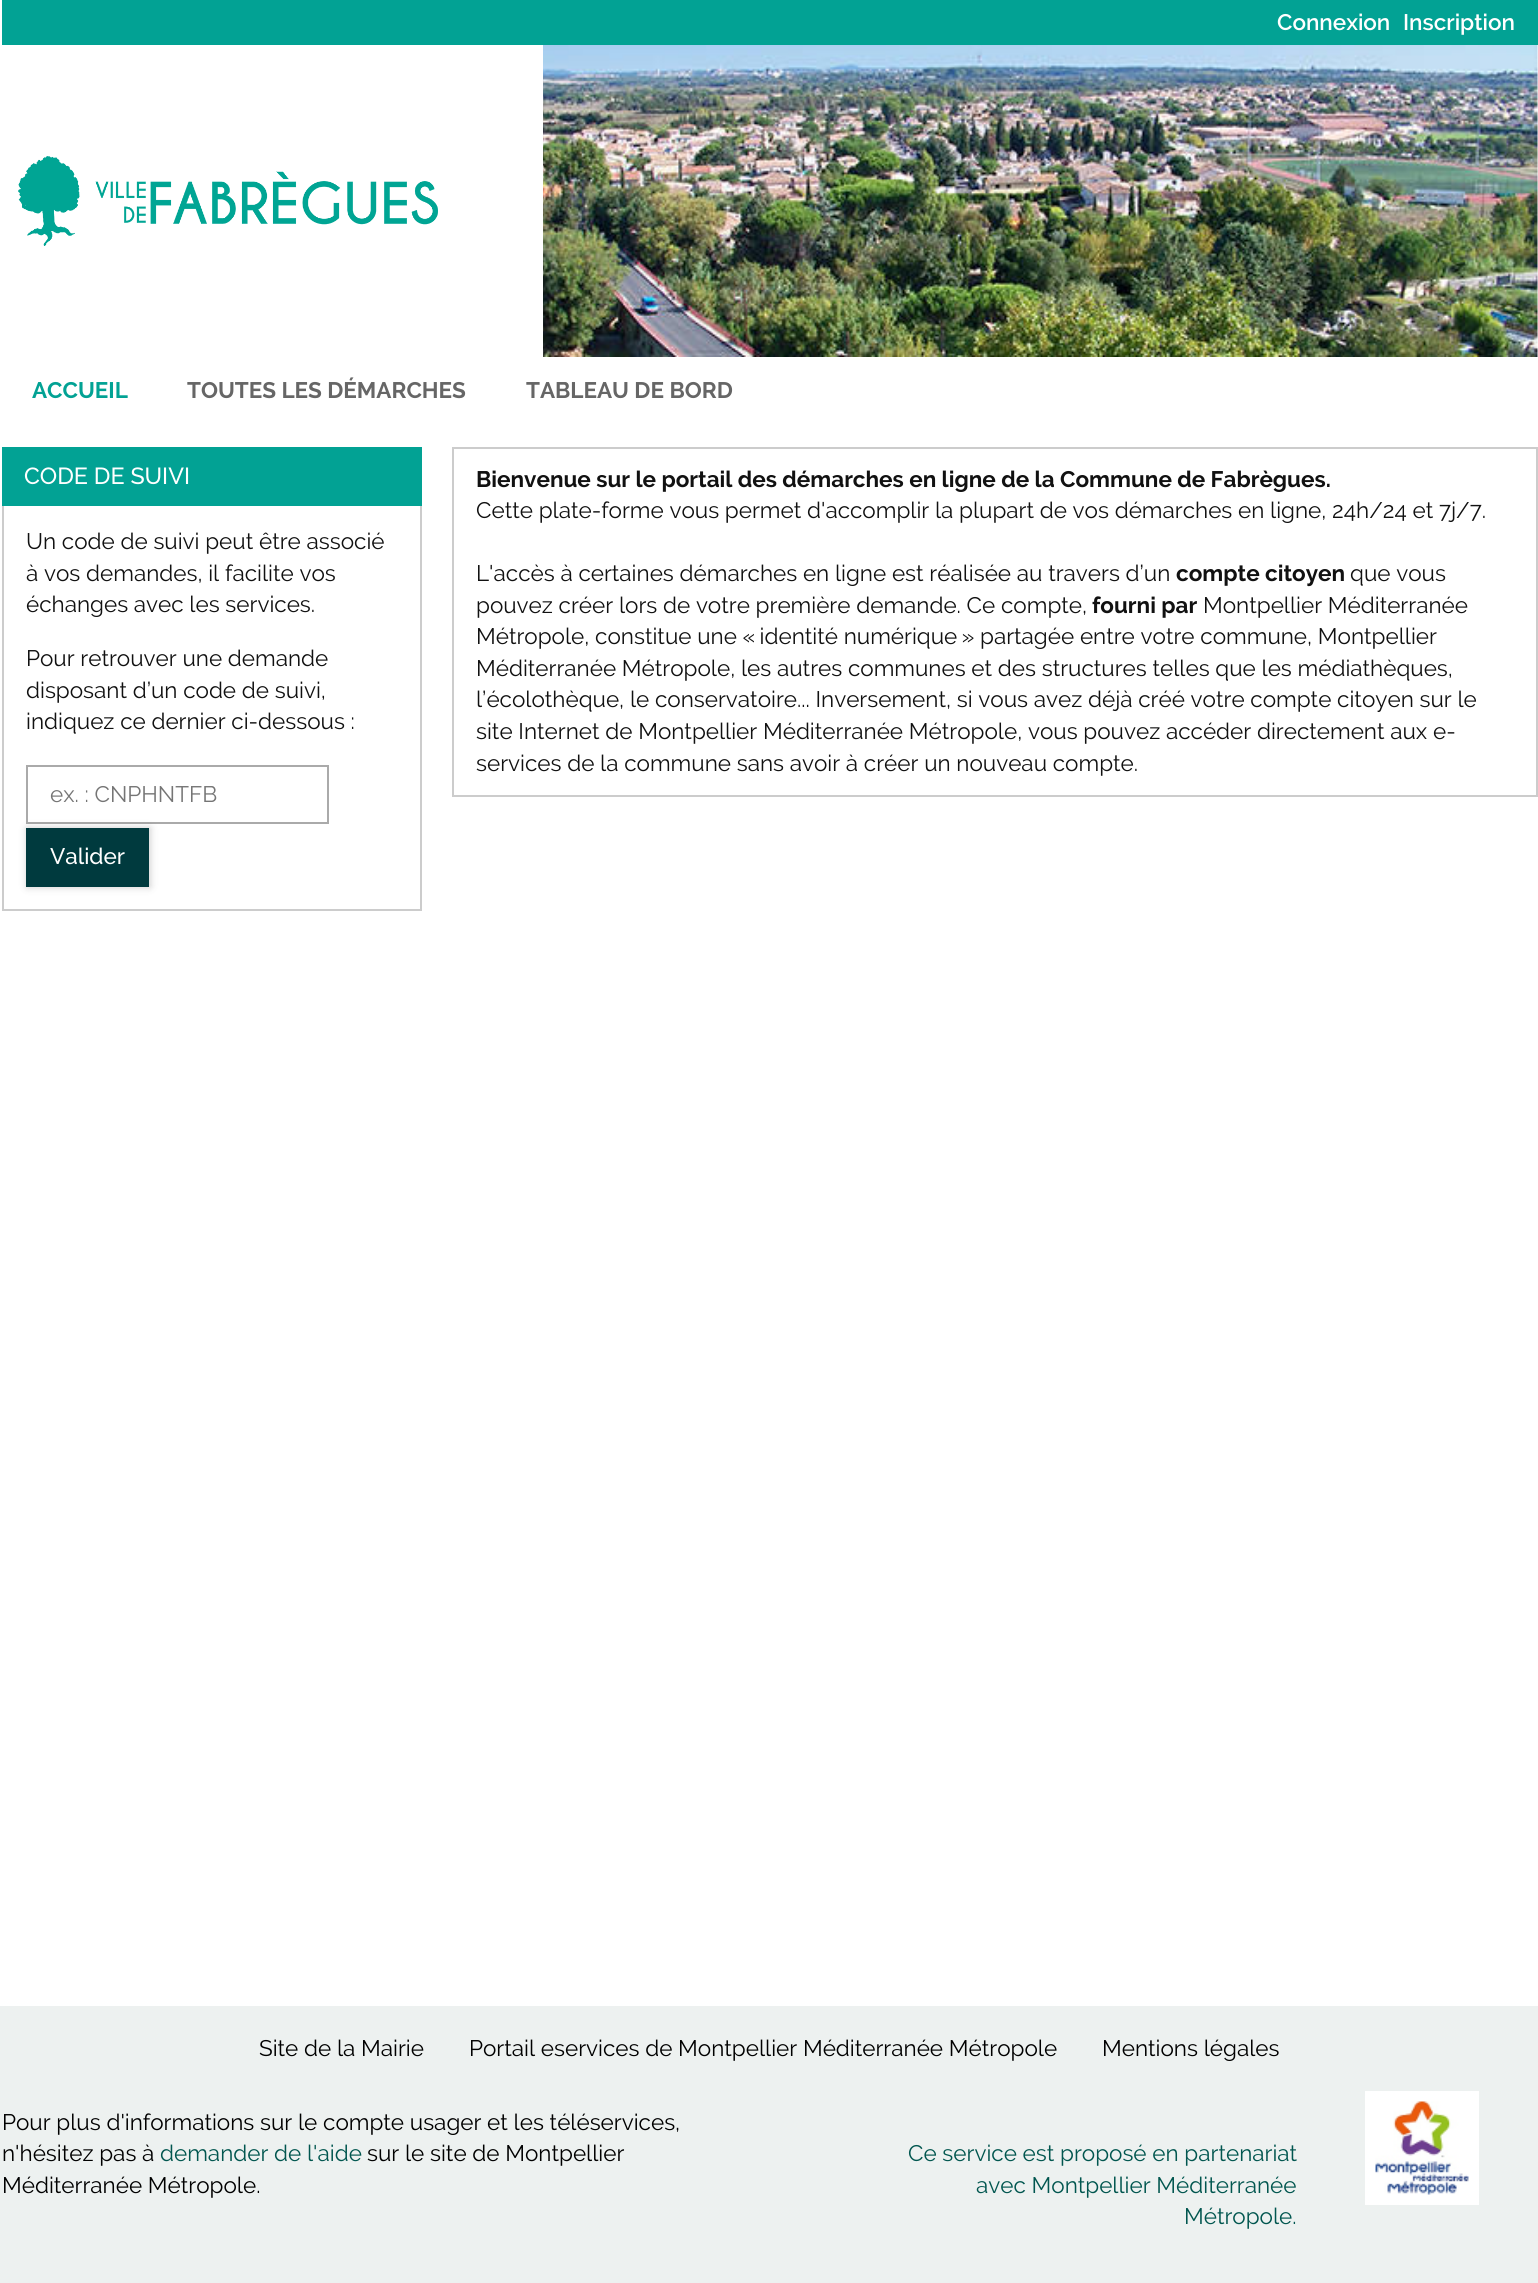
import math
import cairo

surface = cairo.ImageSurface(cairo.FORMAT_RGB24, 1538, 2283)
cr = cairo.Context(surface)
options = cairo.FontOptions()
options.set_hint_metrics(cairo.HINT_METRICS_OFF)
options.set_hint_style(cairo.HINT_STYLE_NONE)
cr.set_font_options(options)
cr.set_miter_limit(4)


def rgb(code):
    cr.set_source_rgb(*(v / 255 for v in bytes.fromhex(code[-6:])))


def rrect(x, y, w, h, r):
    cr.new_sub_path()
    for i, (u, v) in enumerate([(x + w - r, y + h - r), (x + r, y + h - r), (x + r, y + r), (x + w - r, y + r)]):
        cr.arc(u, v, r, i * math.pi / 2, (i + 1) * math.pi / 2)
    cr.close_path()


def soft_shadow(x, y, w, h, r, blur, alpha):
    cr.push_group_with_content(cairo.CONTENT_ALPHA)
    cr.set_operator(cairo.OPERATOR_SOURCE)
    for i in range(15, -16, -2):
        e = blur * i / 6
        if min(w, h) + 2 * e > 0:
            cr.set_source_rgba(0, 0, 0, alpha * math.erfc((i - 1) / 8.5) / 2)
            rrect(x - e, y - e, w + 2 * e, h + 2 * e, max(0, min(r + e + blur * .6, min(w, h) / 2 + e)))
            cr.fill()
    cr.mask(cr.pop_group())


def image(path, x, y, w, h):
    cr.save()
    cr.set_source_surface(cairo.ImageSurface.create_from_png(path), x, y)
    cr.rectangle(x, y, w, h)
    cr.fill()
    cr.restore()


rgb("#ffffff")
cr.paint()
image("img/1.png", 543, 45, 995, 312)
rgb("#02a294")
cr.rectangle(2, 0, 1536, 45)
cr.fill()
image("img/2.png", 18, 156, 420, 90)
cr.rectangle(3, 448, 418, 462)
rgb("#cccccc")
cr.stroke()
rgb("#02a294")
cr.rectangle(2, 447, 420, 59)
cr.fill()
cr.rectangle(27, 766, 301, 57)
rgb("#aaaaaa")
cr.stroke()
rgb("#000000")
soft_shadow(27, 828, 123, 59, 0, 4, 0.21)
rgb("#003a3e")
cr.rectangle(26, 828, 123, 59)
cr.fill()
cr.rectangle(453, 448, 1084, 348)
rgb("#cccccc")
cr.stroke()
rgb("#edf1f0")
cr.rectangle(0, 2006, 1538, 277)
cr.fill()
image("img/3.png", 1365, 2091, 114, 114)
cr.select_font_face("Raleway SemiBold")
cr.set_font_size(22.5)
rgb("#ffffff")
cr.move_to(1277, 30)
cr.show_text("Connexion")
cr.move_to(1403, 30)
cr.show_text("Inscription")
cr.select_font_face("Raleway", cairo.FONT_SLANT_NORMAL, cairo.FONT_WEIGHT_BOLD)
rgb("#02a294")
cr.move_to(32, 398)
cr.show_text("ACCUEIL")
rgb("#666666")
cr.move_to(187, 398)
cr.show_text("TOUTES LES DÉMARCHES")
cr.move_to(526, 398)
cr.show_text("TABLEAU DE BORD")
cr.select_font_face("Raleway Medium")
cr.set_font_size(23.25)
rgb("#ffffff")
cr.move_to(24, 484)
cr.show_text("CODE DE SUIVI")
cr.select_font_face("Raleway")
cr.set_font_size(22.5)
rgb("#111111")
for x, y, s in [
    (26, 549, "Un code de suivi peut être associé"),
    (26, 581, "à vos demandes, il facilite vos"),
    (26, 612, "échanges avec les services."),
    (26, 666, "Pour retrouver une demande"),
    (26, 698, "disposant d’un code de suivi,"),
    (26, 729, "indiquez ce dernier ci-dessous :"),
]:
    cr.move_to(x, y)
    cr.show_text(s)
rgb("#757575")
cr.move_to(50, 802)
cr.show_text("ex. : CNPHNTFB")
cr.select_font_face("Raleway Medium")
rgb("#ffffff")
cr.move_to(50, 864)
cr.show_text("Valider")
cr.select_font_face("Raleway", cairo.FONT_SLANT_NORMAL, cairo.FONT_WEIGHT_BOLD)
rgb("#111111")
cr.move_to(476, 487)
cr.show_text("Bienvenue sur le portail des démarches en ligne de la Commune de Fabrègues.")
cr.select_font_face("Raleway")
cr.move_to(476, 518)
cr.show_text("Cette plate-forme vous permet d'accomplir la plupart de vos démarches en ligne, 24h/24 et 7j/7.")
cr.move_to(476, 581)
cr.show_text("L'accès à certaines démarches en ligne est réalisée au travers d’un")
cr.select_font_face("Raleway", cairo.FONT_SLANT_NORMAL, cairo.FONT_WEIGHT_BOLD)
cr.move_to(1176, 581)
cr.show_text("compte citoyen")
cr.select_font_face("Raleway")
cr.move_to(1350, 581)
cr.show_text("que vous")
cr.move_to(476, 613)
cr.show_text("pouvez créer lors de votre première demande. Ce compte,")
cr.select_font_face("Raleway", cairo.FONT_SLANT_NORMAL, cairo.FONT_WEIGHT_BOLD)
cr.move_to(1092, 613)
cr.show_text("fourni par")
cr.select_font_face("Raleway")
for x, y, s in [
    (1203, 613, "Montpellier Méditerranée"),
    (476, 644, "Métropole, constitue une « identité numérique » partagée entre votre commune, Montpellier"),
    (476, 676, "Méditerranée Métropole, les autres communes et des structures telles que les médiathèques,"),
    (476, 707, "l’écolothèque, le conservatoire... Inversement, si vous avez déjà créé votre compte citoyen sur le"),
    (476, 739, "site Internet de Montpellier Méditerranée Métropole, vous pouvez accéder directement aux e-"),
    (476, 771, "services de la commune sans avoir à créer un nouveau compte."),
]:
    cr.move_to(x, y)
    cr.show_text(s)
rgb("#000000")
for x, y, s in [
    (259, 2056, "Site de la Mairie"),
    (469, 2056, "Portail eservices de Montpellier Méditerranée Métropole"),
    (1102, 2056, "Mentions légales"),
    (2, 2130, "Pour plus d'informations sur le compte usager et les téléservices,"),
    (2, 2161, "n'hésitez pas à"),
]:
    cr.move_to(x, y)
    cr.show_text(s)
rgb("#01564f")
cr.move_to(160, 2161)
cr.show_text("demander de l'aide")
rgb("#000000")
cr.move_to(367, 2161)
cr.show_text("sur le site de Montpellier")
cr.move_to(2, 2193)
cr.show_text("Méditerranée Métropole.")
rgb("#01564f")
for x, y, s in [
    (908, 2161, "Ce service est proposé en partenariat"),
    (976, 2193, "avec Montpellier Méditerranée"),
    (1184, 2224, "Métropole."),
]:
    cr.move_to(x, y)
    cr.show_text(s)
surface.write_to_png("page.png")
